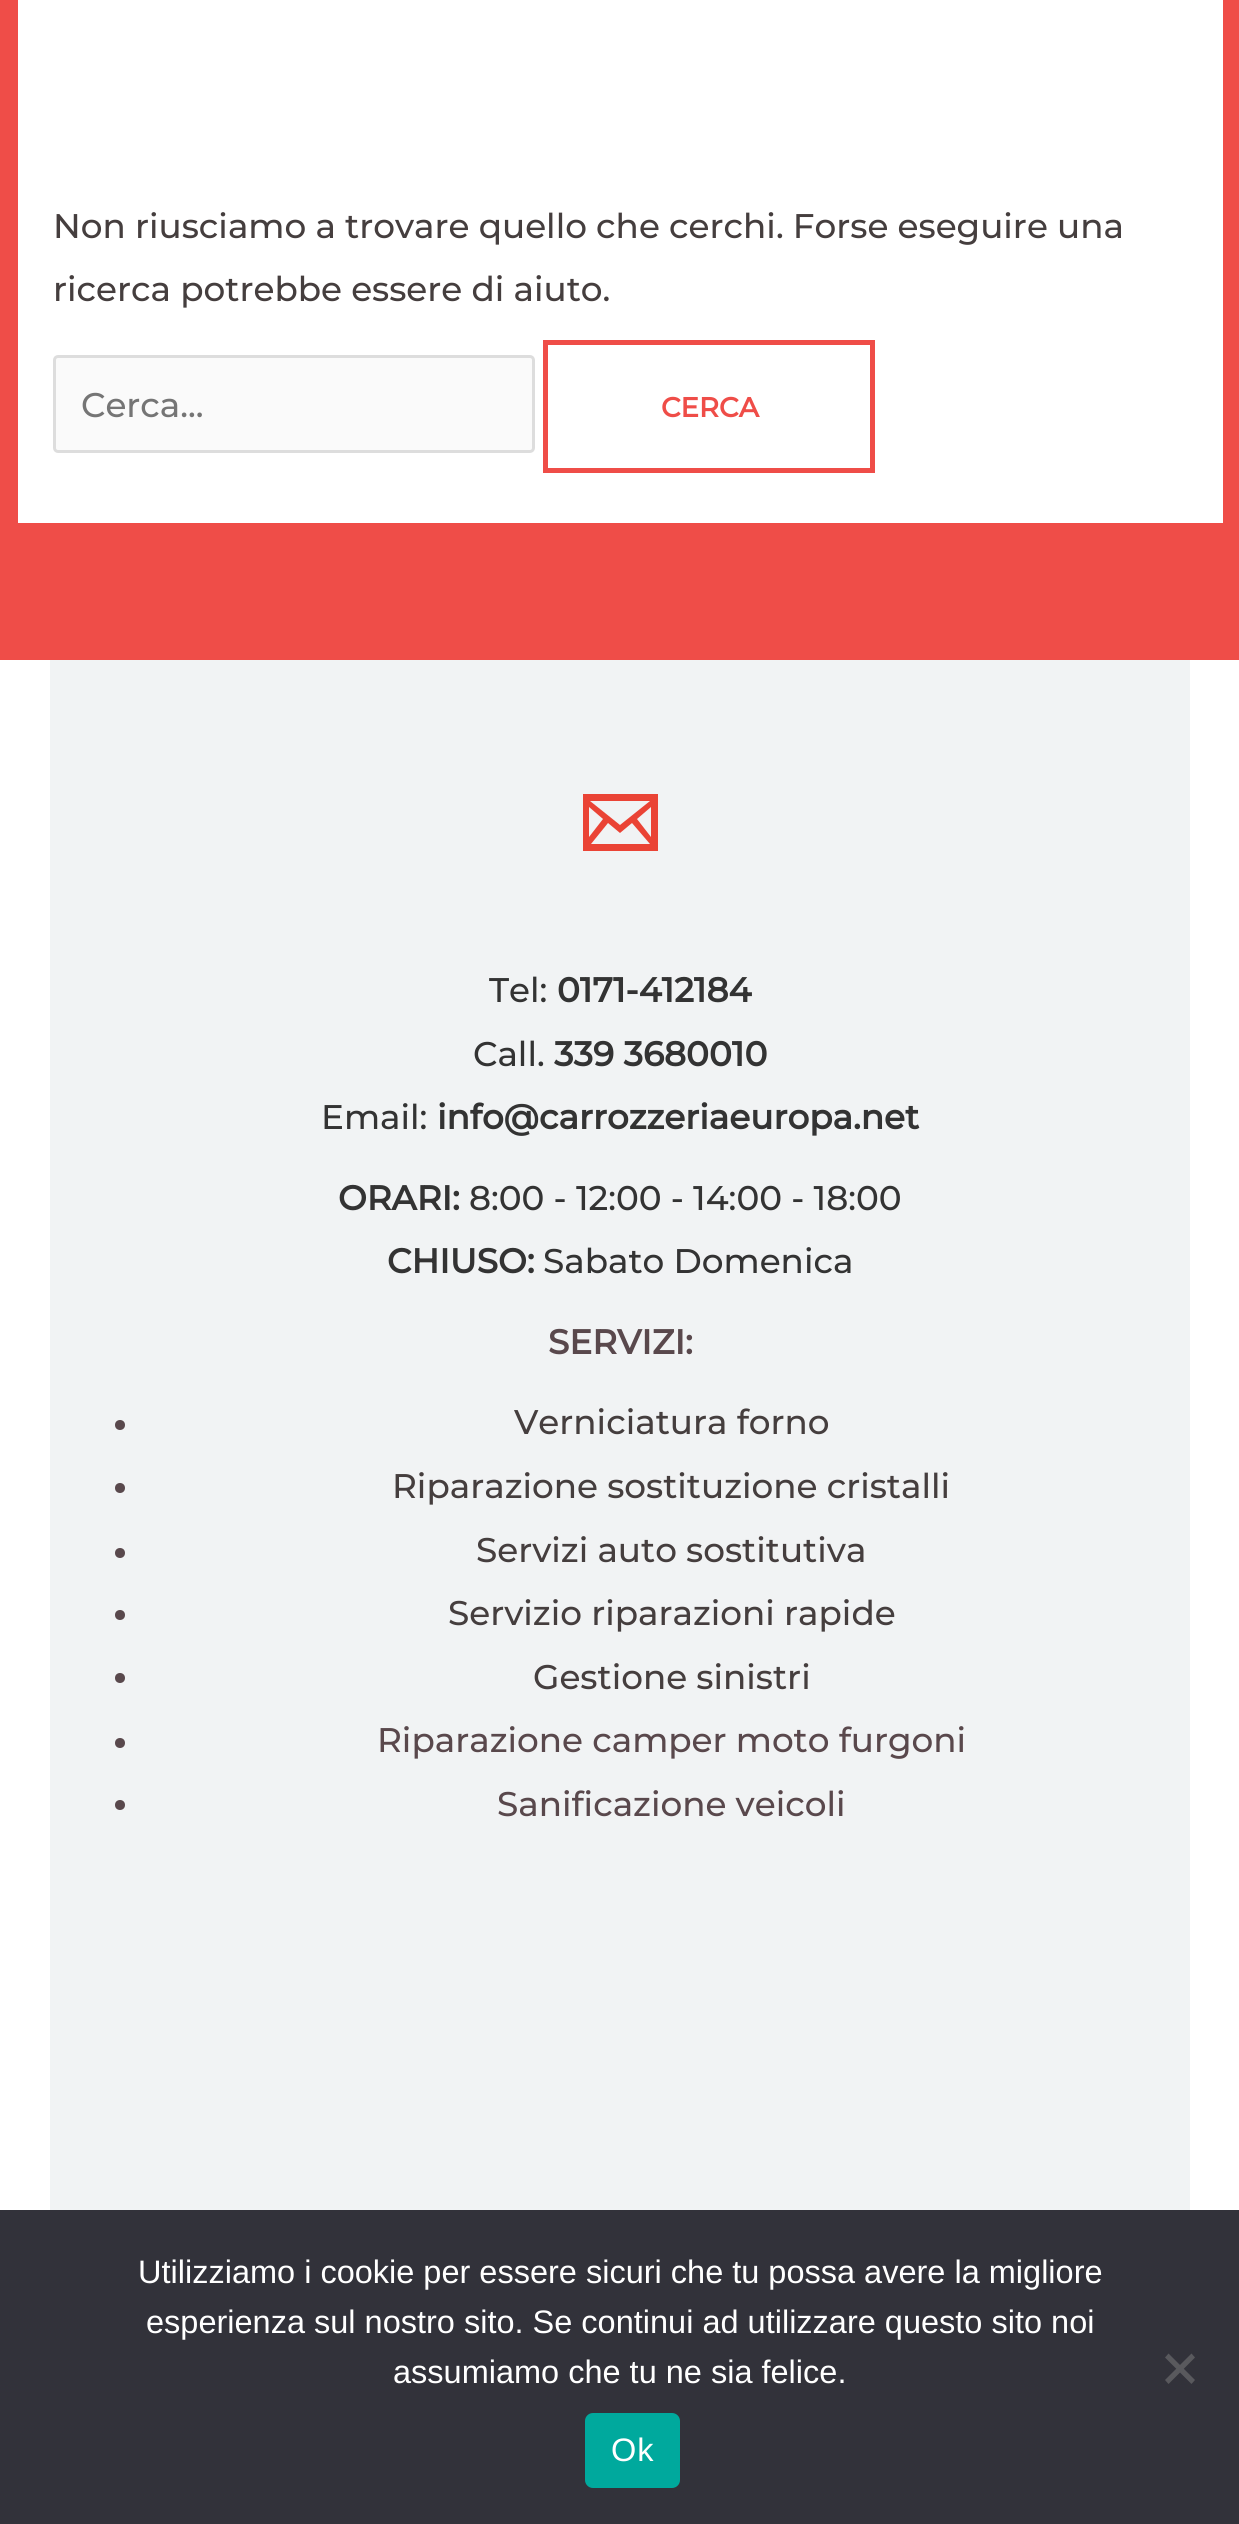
import math
import cairo

surface = cairo.ImageSurface(cairo.FORMAT_RGB24, 1239, 2524)
cr = cairo.Context(surface)
options = cairo.FontOptions()
options.set_hint_metrics(cairo.HINT_METRICS_OFF)
options.set_hint_style(cairo.HINT_STYLE_NONE)
cr.set_font_options(options)
cr.set_miter_limit(4)


def rgb(code):
    cr.set_source_rgb(*(v / 255 for v in bytes.fromhex(code[-6:])))


def tracked(x, y, s, letter, word):
    cr.move_to(x, y)
    for ch in s:
        cr.show_text(ch)
        cr.rel_move_to(letter + word * (ch == ' '), 0)


def rrect(x, y, w, h, r):
    cr.new_sub_path()
    for i, (u, v) in enumerate([(x + w - r, y + h - r), (x + r, y + h - r), (x + r, y + r), (x + w - r, y + r)]):
        cr.arc(u, v, r, i * math.pi / 2, (i + 1) * math.pi / 2)
    cr.close_path()


rgb("#ef4d48")
cr.paint()
rgb("#ffffff")
cr.rectangle(18, 0, 1205, 523)
cr.fill()
rgb("#fafafa")
rrect(54.5, 356.5, 479, 95, 3.5)
cr.fill_preserve()
rgb("#dddddd")
cr.set_line_width(3)
cr.stroke()
cr.rectangle(545.5, 342.5, 327, 128)
rgb("#ef4d48")
cr.set_line_width(5)
cr.stroke()
rgb("#ffffff")
cr.rectangle(0, 660, 1239, 1550)
cr.fill()
rgb("#f1f3f4")
cr.rectangle(50, 660, 1140, 1550)
cr.fill()
cr.save()
cr.rectangle(583, 785, 75, 75)
cr.clip()
rgb("#ea4335")
cr.new_path()
cr.move_to(582, 794)
cr.line_to(582, 851)
cr.line_to(658, 851)
cr.line_to(658, 794)
cr.close_path()
cr.move_to(603, 819)
cr.line_to(589, 837)
cr.line_to(589, 807)
cr.close_path()
cr.move_to(590, 801)
cr.line_to(650, 801)
cr.line_to(620, 825)
cr.close_path()
cr.move_to(608, 823)
cr.line_to(620, 833)
cr.line_to(632, 823)
cr.line_to(650, 844)
cr.line_to(591, 844)
cr.close_path()
cr.move_to(637, 819)
cr.line_to(651, 807)
cr.line_to(651, 837)
cr.close_path()
cr.fill()
cr.restore()
rgb("#59484c")
cr.arc(120, 1425, 5, 0, 2 * math.pi)
cr.fill()
cr.arc(120, 1488, 5, 0, 2 * math.pi)
cr.fill()
cr.arc(120, 1553, 5, 0, 2 * math.pi)
cr.fill()
cr.arc(120, 1615, 5, 0, 2 * math.pi)
cr.fill()
cr.arc(120, 1678, 5, 0, 2 * math.pi)
cr.fill()
cr.arc(120, 1743, 5, 0, 2 * math.pi)
cr.fill()
cr.arc(120, 1805, 5, 0, 2 * math.pi)
cr.fill()
rgb("#32323a")
cr.rectangle(0, 2210, 1239, 314)
cr.fill()
rgb("#59595d")
cr.new_path()
cr.move_to(1191.5, 2353.5)
cr.line_to(1195, 2357.5)
cr.line_to(1168.5, 2384)
cr.line_to(1165, 2380)
cr.close_path()
cr.fill()
cr.new_path()
cr.move_to(1165, 2357.5)
cr.line_to(1168.5, 2353.5)
cr.line_to(1195, 2380)
cr.line_to(1191.5, 2384)
cr.close_path()
cr.fill()
rgb("#00a99d")
rrect(585, 2413, 95, 75, 8)
cr.fill()
cr.select_font_face("Montserrat Thin")
cr.set_font_size(34.2)
rgb("#453e3e")
cr.move_to(53, 238)
cr.show_text("Non riusciamo a trovare quello che cerchi. Forse eseguire una")
cr.move_to(53, 301)
cr.show_text("ricerca potrebbe essere di aiuto.")
rgb("#757575")
cr.move_to(81, 417)
cr.show_text("Cerca...")
cr.select_font_face("Montserrat", cairo.FONT_SLANT_NORMAL, cairo.FONT_WEIGHT_BOLD)
cr.set_font_size(27.5)
rgb("#ef4d48")
cr.move_to(661, 417)
cr.show_text("CERCA")
cr.select_font_face("Montserrat Thin")
cr.set_font_size(34.2)
rgb("#333333")
cr.move_to(489, 1002)
cr.show_text("Tel:")
cr.select_font_face("Montserrat", cairo.FONT_SLANT_NORMAL, cairo.FONT_WEIGHT_BOLD)
cr.move_to(557, 1002)
cr.show_text("0171-412184")
cr.select_font_face("Montserrat Thin")
cr.move_to(473, 1066)
cr.show_text("Call.")
cr.select_font_face("Montserrat", cairo.FONT_SLANT_NORMAL, cairo.FONT_WEIGHT_BOLD)
cr.move_to(554, 1066)
cr.show_text("339 3680010")
cr.select_font_face("Montserrat Thin")
cr.move_to(321, 1129)
cr.show_text("Email:")
cr.select_font_face("Montserrat", cairo.FONT_SLANT_NORMAL, cairo.FONT_WEIGHT_BOLD)
cr.move_to(437, 1129)
cr.show_text("info@carrozzeriaeuropa.net")
cr.move_to(338, 1210)
cr.show_text("ORARI:")
cr.select_font_face("Montserrat Thin")
cr.move_to(469, 1210)
cr.show_text("8:00 - 12:00 - 14:00 - 18:00")
cr.select_font_face("Montserrat", cairo.FONT_SLANT_NORMAL, cairo.FONT_WEIGHT_BOLD)
cr.move_to(387, 1273)
cr.show_text("CHIUSO:")
cr.select_font_face("Montserrat Thin")
cr.move_to(543, 1273)
cr.show_text("Sabato Domenica")
cr.select_font_face("Montserrat", cairo.FONT_SLANT_NORMAL, cairo.FONT_WEIGHT_BOLD)
rgb("#59484c")
cr.move_to(548, 1354)
cr.show_text("SERVIZI:")
cr.select_font_face("Montserrat Thin")
rgb("#453e3e")
for x, y, s in [
    (514, 1434, "Verniciatura forno"),
    (392, 1498, "Riparazione sostituzione cristalli"),
    (476, 1562, "Servizi auto sostitutiva"),
    (448, 1625, "Servizio riparazioni rapide"),
    (533, 1689, "Gestione sinistri"),
]:
    cr.move_to(x, y)
    cr.show_text(s)
rgb("#59484c")
cr.move_to(377, 1752)
cr.show_text("Riparazione camper moto furgoni")
cr.move_to(497, 1816)
cr.show_text("Sanificazione veicoli")
cr.select_font_face("Liberation Sans")
cr.set_font_size(32.5)
rgb("#ffffff")
for x, y, s in [
    (138, 2283, "Utilizziamo i cookie per essere sicuri che tu possa avere la migliore"),
    (146, 2333, "esperienza sul nostro sito. Se continui ad utilizzare questo sito noi"),
    (393, 2383, "assumiamo che tu ne sia felice."),
]:
    cr.move_to(x, y)
    cr.show_text(s)
tracked(611, 2461, "Ok", 1, 0)
surface.write_to_png("page.png")
